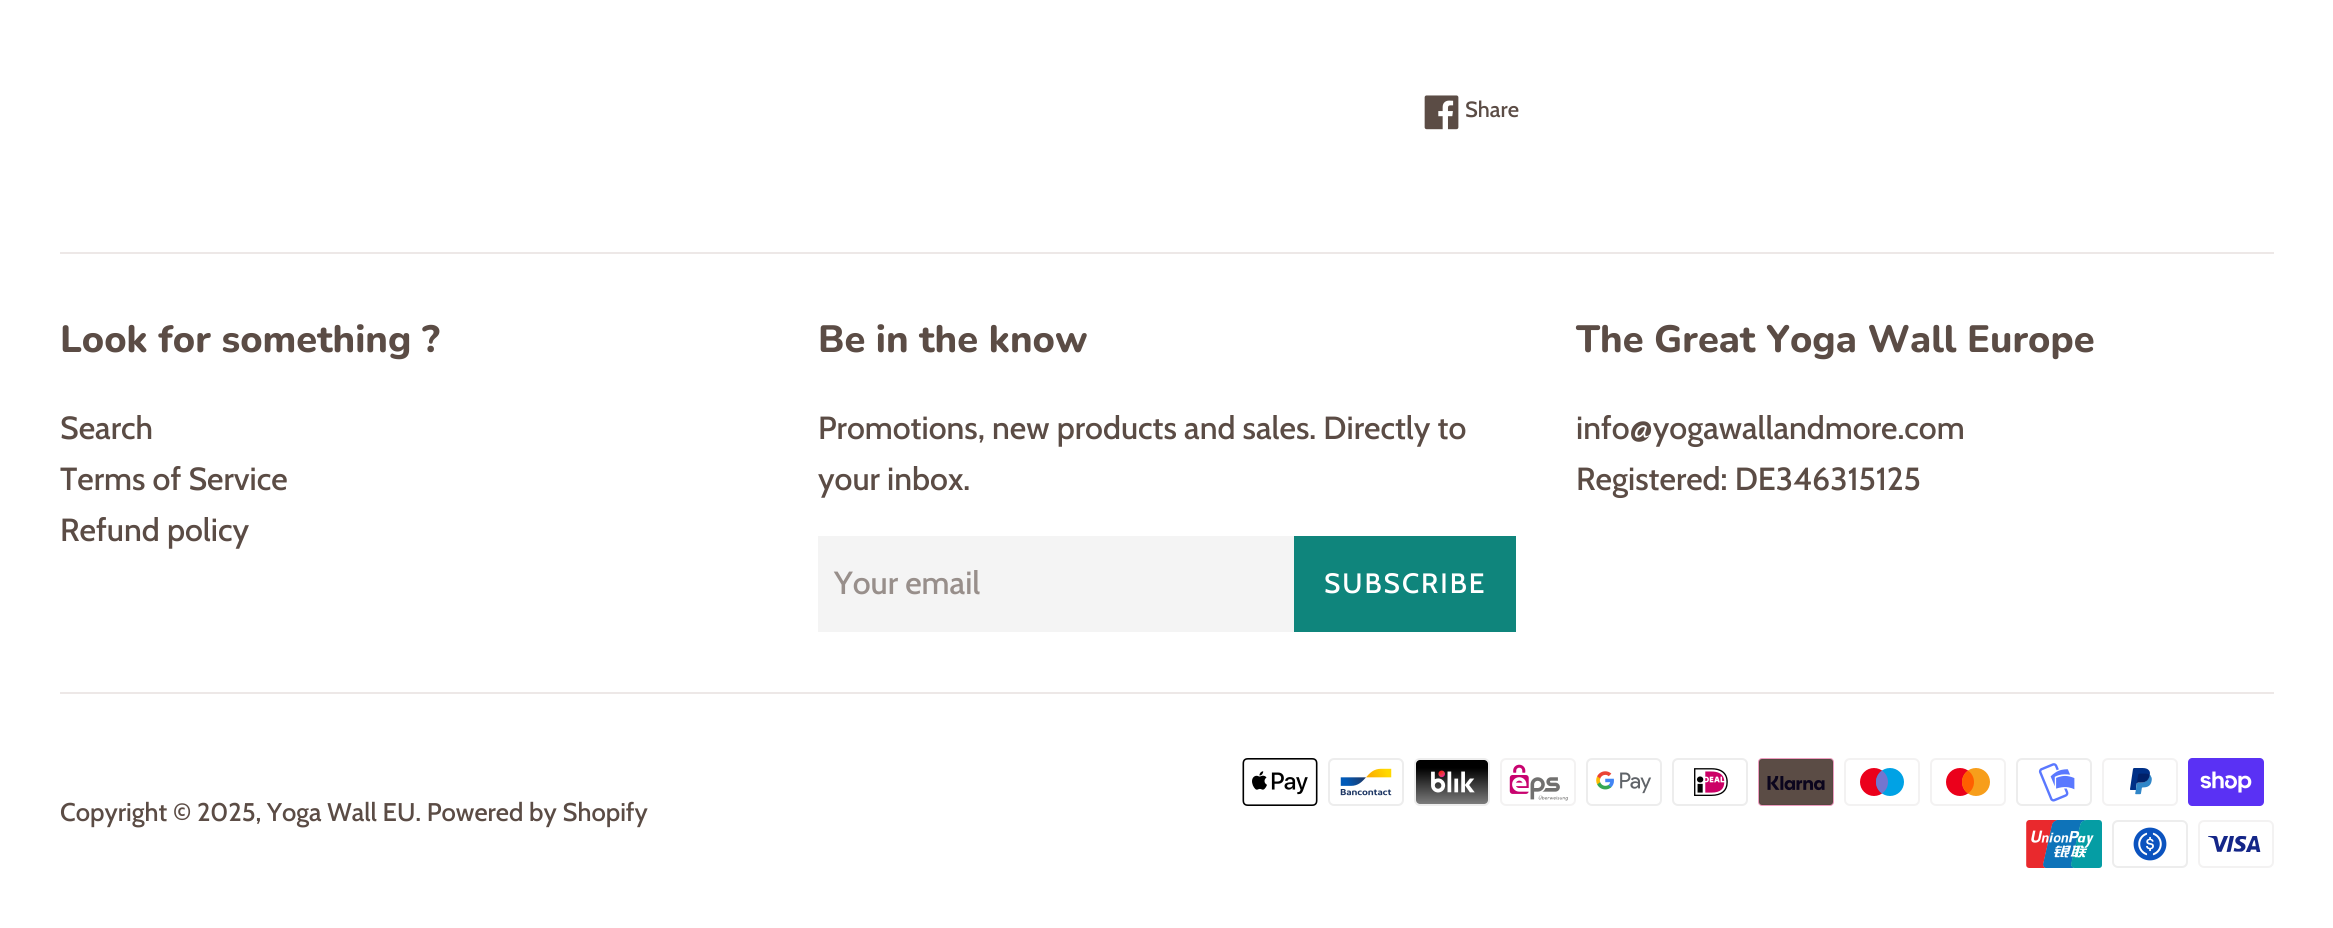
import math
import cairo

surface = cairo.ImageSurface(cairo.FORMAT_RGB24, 2333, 928)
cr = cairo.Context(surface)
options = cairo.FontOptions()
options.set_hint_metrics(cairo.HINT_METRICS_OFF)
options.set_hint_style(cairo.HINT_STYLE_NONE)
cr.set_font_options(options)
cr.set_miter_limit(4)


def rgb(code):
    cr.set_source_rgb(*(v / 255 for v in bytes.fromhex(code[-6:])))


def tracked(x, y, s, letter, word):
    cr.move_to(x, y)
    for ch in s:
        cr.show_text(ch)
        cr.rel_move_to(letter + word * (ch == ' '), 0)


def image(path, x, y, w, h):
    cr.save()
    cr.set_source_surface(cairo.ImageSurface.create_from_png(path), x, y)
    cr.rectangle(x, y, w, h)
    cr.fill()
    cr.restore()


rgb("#ffffff")
cr.paint()
image("img/1.png", 1424, 95, 35, 35)
for x, y, w, h, color in [
    (60, 252, 2214, 2, "#ede8e7"),
    (818, 536, 476, 96, "#f4f4f4"),
    (1294, 536, 222, 96, "#0f857c"),
    (60, 692, 2214, 2, "#ede8e7"),
]:
    rgb(color)
    cr.rectangle(x, y, w, h)
    cr.fill()
image("img/2.png", 1242, 758, 76, 48)
image("img/3.png", 1328, 758, 76, 48)
image("img/4.png", 1414, 758, 76, 48)
image("img/5.png", 1500, 758, 76, 48)
image("img/6.png", 1586, 758, 76, 48)
image("img/7.png", 1672, 758, 76, 48)
image("img/8.png", 1758, 758, 76, 48)
image("img/9.png", 1844, 758, 76, 48)
image("img/10.png", 1930, 758, 76, 48)
image("img/11.png", 2016, 758, 76, 48)
image("img/12.png", 2102, 758, 76, 48)
image("img/13.png", 2188, 758, 76, 48)
image("img/14.png", 2026, 820, 76, 48)
image("img/15.png", 2112, 820, 76, 48)
image("img/16.png", 2198, 820, 76, 48)
cr.select_font_face("Cabin Medium")
cr.set_font_size(22)
rgb("#5b4c45")
cr.move_to(1465, 117)
cr.show_text("Share")
cr.select_font_face("Nunito ExtraBold")
cr.set_font_size(38)
cr.move_to(60, 352)
cr.show_text("Look for something ?")
cr.select_font_face("Cabin Medium")
cr.set_font_size(32)
for x, y, s in [
    (60, 439, "Search"),
    (60, 490, "Terms of Service"),
    (60, 541, "Refund policy"),
]:
    cr.move_to(x, y)
    cr.show_text(s)
cr.select_font_face("Nunito ExtraBold")
cr.set_font_size(38)
cr.move_to(818, 352)
cr.show_text("Be in the know")
cr.select_font_face("Cabin Medium")
cr.set_font_size(32)
cr.move_to(818, 439)
cr.show_text("Promotions, new products and sales. Directly to")
cr.move_to(818, 490)
cr.show_text("your inbox.")
rgb("#988f8b")
cr.move_to(834, 594)
cr.show_text("Your email")
cr.set_font_size(28)
rgb("#ffffff")
tracked(1324, 593, "SUBSCRIBE", 2, 0)
cr.select_font_face("Nunito ExtraBold")
cr.set_font_size(38)
rgb("#5b4c45")
cr.move_to(1576, 352)
cr.show_text("The Great Yoga Wall Europe")
cr.select_font_face("Cabin Medium")
cr.set_font_size(32)
cr.move_to(1576, 439)
cr.show_text("info@yogawallandmore.com")
cr.move_to(1576, 490)
cr.show_text("Registered: DE346315125")
cr.set_font_size(25.6)
cr.move_to(60, 821)
cr.show_text("Copyright © 2025, Yoga Wall EU. Powered by Shopify")
surface.write_to_png("page.png")
